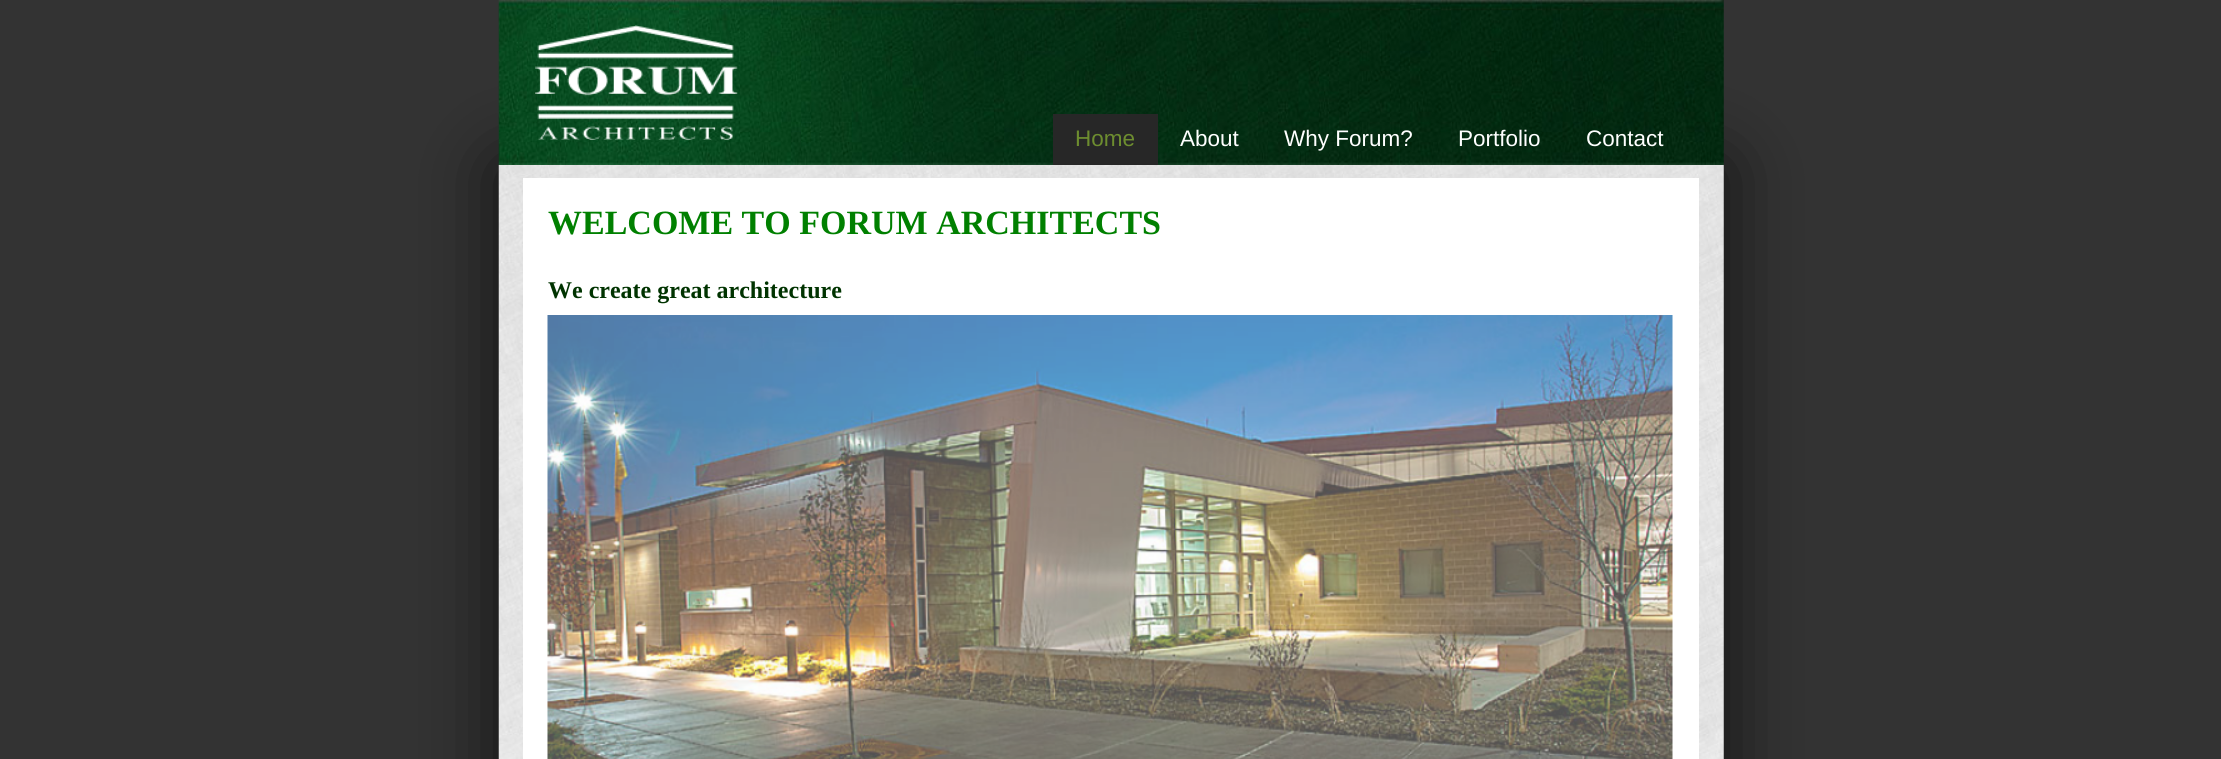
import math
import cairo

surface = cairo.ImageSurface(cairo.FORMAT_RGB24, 2221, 759)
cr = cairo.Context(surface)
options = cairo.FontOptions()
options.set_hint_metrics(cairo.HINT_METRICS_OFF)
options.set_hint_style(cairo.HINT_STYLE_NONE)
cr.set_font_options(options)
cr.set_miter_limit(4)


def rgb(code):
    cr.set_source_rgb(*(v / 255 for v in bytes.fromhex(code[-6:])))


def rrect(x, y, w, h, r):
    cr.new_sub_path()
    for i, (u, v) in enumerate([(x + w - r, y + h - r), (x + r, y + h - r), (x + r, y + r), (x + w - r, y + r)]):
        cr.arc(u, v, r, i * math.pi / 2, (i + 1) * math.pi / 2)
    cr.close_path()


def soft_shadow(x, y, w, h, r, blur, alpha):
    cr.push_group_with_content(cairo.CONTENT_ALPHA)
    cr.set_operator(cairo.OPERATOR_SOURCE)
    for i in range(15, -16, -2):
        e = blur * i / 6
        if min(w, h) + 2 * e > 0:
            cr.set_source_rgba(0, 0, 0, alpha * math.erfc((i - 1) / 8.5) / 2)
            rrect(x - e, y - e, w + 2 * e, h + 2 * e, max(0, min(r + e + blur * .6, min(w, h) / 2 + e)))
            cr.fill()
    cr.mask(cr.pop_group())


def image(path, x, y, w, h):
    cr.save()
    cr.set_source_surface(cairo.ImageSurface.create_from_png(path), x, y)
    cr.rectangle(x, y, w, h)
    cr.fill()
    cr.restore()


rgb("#333333")
cr.paint()
rgb("#000000")
soft_shadow(499, 165, 1225, 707, 0, 37.5, 0.7)
image("img/1.png", 498, 0, 1226, 165)
image("img/2.png", 535, 25, 203, 115)
rgb("#272727")
cr.rectangle(1053, 114, 105, 51)
cr.fill()
image("img/3.png", 498, 165, 1226, 594)
rgb("#ffffff")
cr.rectangle(523, 178, 1176, 581)
cr.fill()
image("img/4.png", 547, 315, 1126, 444)
cr.select_font_face("Liberation Sans")
cr.set_font_size(22.5)
rgb("#6d8d2f")
cr.move_to(1075, 146)
cr.show_text("Home")
rgb("#ffffff")
for x, y, s in [
    (1180, 146, "About"),
    (1284, 146, "Why Forum?"),
    (1458, 146, "Portfolio"),
    (1586, 146, "Contact"),
]:
    cr.move_to(x, y)
    cr.show_text(s)
cr.select_font_face("Liberation Serif", cairo.FONT_SLANT_NORMAL, cairo.FONT_WEIGHT_BOLD)
cr.set_font_size(34)
rgb("#008000")
cr.move_to(548, 234)
cr.show_text("WELCOME TO FORUM ARCHITECTS")
cr.set_font_size(24)
rgb("#003300")
cr.move_to(548, 298)
cr.show_text("We create great architecture")
surface.write_to_png("page.png")
